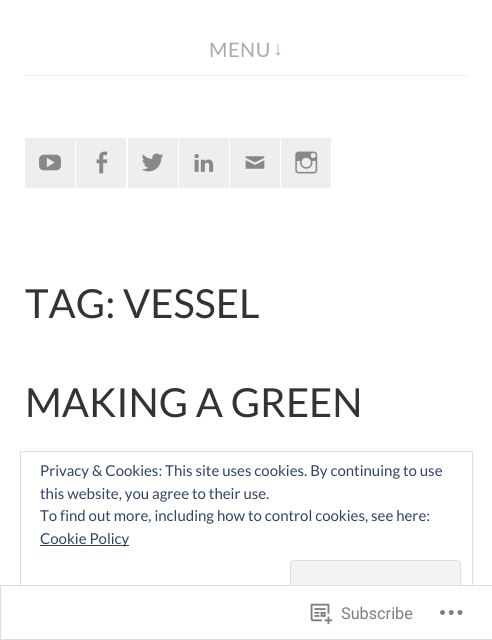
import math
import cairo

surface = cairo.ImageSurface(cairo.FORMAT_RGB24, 492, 640)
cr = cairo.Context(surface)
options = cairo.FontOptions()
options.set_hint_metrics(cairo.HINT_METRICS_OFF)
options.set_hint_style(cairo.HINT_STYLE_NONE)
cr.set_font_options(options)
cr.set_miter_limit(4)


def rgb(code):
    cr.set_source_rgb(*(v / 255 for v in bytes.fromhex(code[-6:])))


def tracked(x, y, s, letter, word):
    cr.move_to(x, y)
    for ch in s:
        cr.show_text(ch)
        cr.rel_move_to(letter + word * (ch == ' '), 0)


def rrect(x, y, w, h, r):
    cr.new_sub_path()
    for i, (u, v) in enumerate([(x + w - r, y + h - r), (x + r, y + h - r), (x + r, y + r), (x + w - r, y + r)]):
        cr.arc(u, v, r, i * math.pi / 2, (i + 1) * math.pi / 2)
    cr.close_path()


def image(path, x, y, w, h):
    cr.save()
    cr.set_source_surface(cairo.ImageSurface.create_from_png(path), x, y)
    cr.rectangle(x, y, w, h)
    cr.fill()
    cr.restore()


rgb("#ffffff")
cr.paint()
rgb("#f0f0f0")
cr.rectangle(25, 75, 443, 1)
cr.fill()
rgb("#eeeeee")
cr.rectangle(25, 138, 50, 50)
cr.fill()
image("img/1.png", 39, 154, 22, 17)
cr.rectangle(76, 138, 50, 50)
cr.fill()
image("img/2.png", 96, 151, 12, 23)
cr.rectangle(128, 138, 50, 50)
cr.fill()
image("img/3.png", 141, 153, 23, 19)
cr.rectangle(179, 138, 50, 50)
cr.fill()
image("img/4.png", 194, 154, 20, 18)
cr.rectangle(230, 138, 50, 50)
cr.fill()
image("img/5.png", 245, 156, 20, 13)
cr.rectangle(281, 138, 50, 50)
cr.fill()
image("img/6.png", 295, 151, 23, 23)
cr.rectangle(20.5, 451.5, 452, 168)
rgb("#dedede")
cr.set_line_width(1)
cr.stroke()
rgb("#2e4467")
cr.rectangle(40, 545, 89, 1)
cr.fill()
rgb("#f3f3f3")
rrect(290.5, 560.5, 170, 48, 3.5)
cr.fill_preserve()
rgb("#dedede")
cr.stroke()
cr.set_source_rgba(1, 1, 1, 0.98)
cr.rectangle(20, 585, 453, 35)
cr.fill()
cr.rectangle(0.5, 585.5, 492, 54)
cr.set_source_rgba(0.863, 0.863, 0.871, 0.98)
cr.stroke()
image("img/7.png", 310, 603, 23, 22)
image("img/8.png", 440, 610, 23, 5)
cr.select_font_face("Lato")
cr.set_font_size(20)
rgb("#aaaaaa")
tracked(209, 57, "MENU", 0.5, 0)
cr.select_font_face("Liberation Sans")
tracked(273, 55, "↓", 0.5, 0)
cr.select_font_face("Lato")
cr.set_font_size(40)
rgb("#333333")
cr.move_to(25, 318)
cr.show_text("TAG: VESSEL")
cr.move_to(25, 417)
cr.show_text("MAKING A GREEN")
cr.set_font_size(15)
rgb("#2e4467")
for x, y, s in [
    (40, 476, "Privacy & Cookies: This site uses cookies. By continuing to use"),
    (40, 499, "this website, you agree to their use."),
    (40, 521, "To find out more, including how to control cookies, see here:"),
    (40, 544, "Cookie Policy"),
]:
    cr.move_to(x, y)
    cr.show_text(s)
cr.select_font_face("Roboto")
cr.set_font_size(16.25)
rgb("#7b7f84")
cr.move_to(341, 619)
cr.show_text("Subscribe")
surface.write_to_png("page.png")
